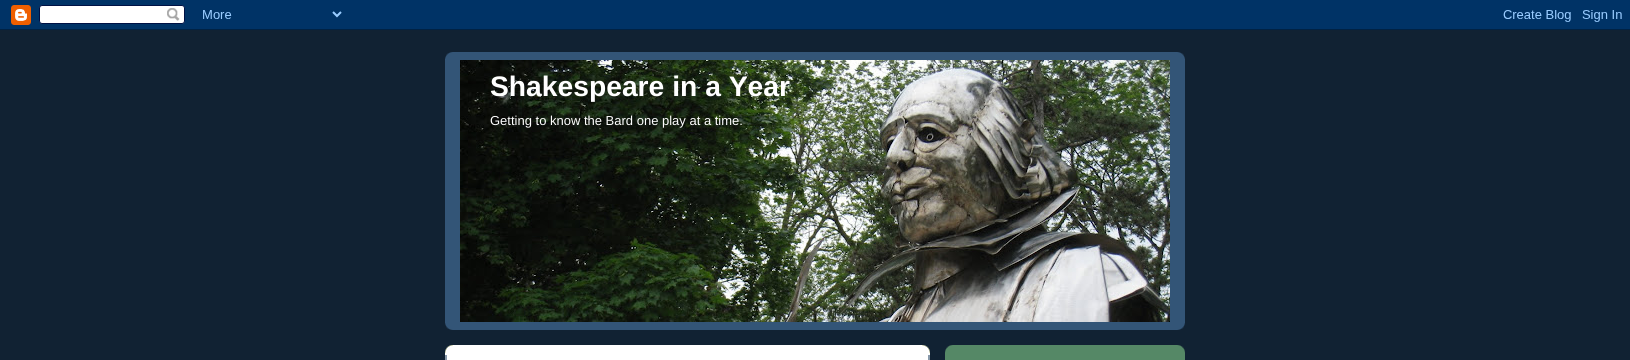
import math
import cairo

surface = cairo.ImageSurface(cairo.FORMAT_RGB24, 1630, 360)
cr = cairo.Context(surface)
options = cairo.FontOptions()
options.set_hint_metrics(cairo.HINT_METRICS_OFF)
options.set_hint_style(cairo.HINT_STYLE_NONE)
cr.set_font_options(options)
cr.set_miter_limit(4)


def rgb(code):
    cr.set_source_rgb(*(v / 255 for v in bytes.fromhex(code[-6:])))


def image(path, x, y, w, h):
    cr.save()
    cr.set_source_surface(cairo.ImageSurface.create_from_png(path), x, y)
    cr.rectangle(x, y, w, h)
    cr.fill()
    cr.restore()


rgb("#112233")
cr.paint()
image("img/1.png", 0, 0, 1630, 30)
rgb("#335577")
cr.rectangle(445, 52, 740, 278)
cr.fill()
image("img/2.png", 445, 52, 740, 7)
image("img/3.png", 445, 323, 740, 7)
image("img/4.png", 460, 60, 710, 262)
rgb("#ffffff")
cr.rectangle(445, 345, 485, 15)
cr.fill()
image("img/5.png", 445, 345, 485, 8)
image("img/6.png", 445, 355, 485, 5)
rgb("#558866")
cr.rectangle(945, 345, 240, 15)
cr.fill()
image("img/7.png", 945, 345, 240, 8)
cr.select_font_face("Liberation Sans", cairo.FONT_SLANT_NORMAL, cairo.FONT_WEIGHT_BOLD)
cr.set_font_size(28.25)
rgb("#ffffff")
cr.move_to(490, 96)
cr.show_text("Shakespeare in a Year")
cr.select_font_face("Liberation Sans")
cr.set_font_size(13)
cr.move_to(490, 125)
cr.show_text("Getting to know the Bard one play at a time.")
surface.write_to_png("page.png")
